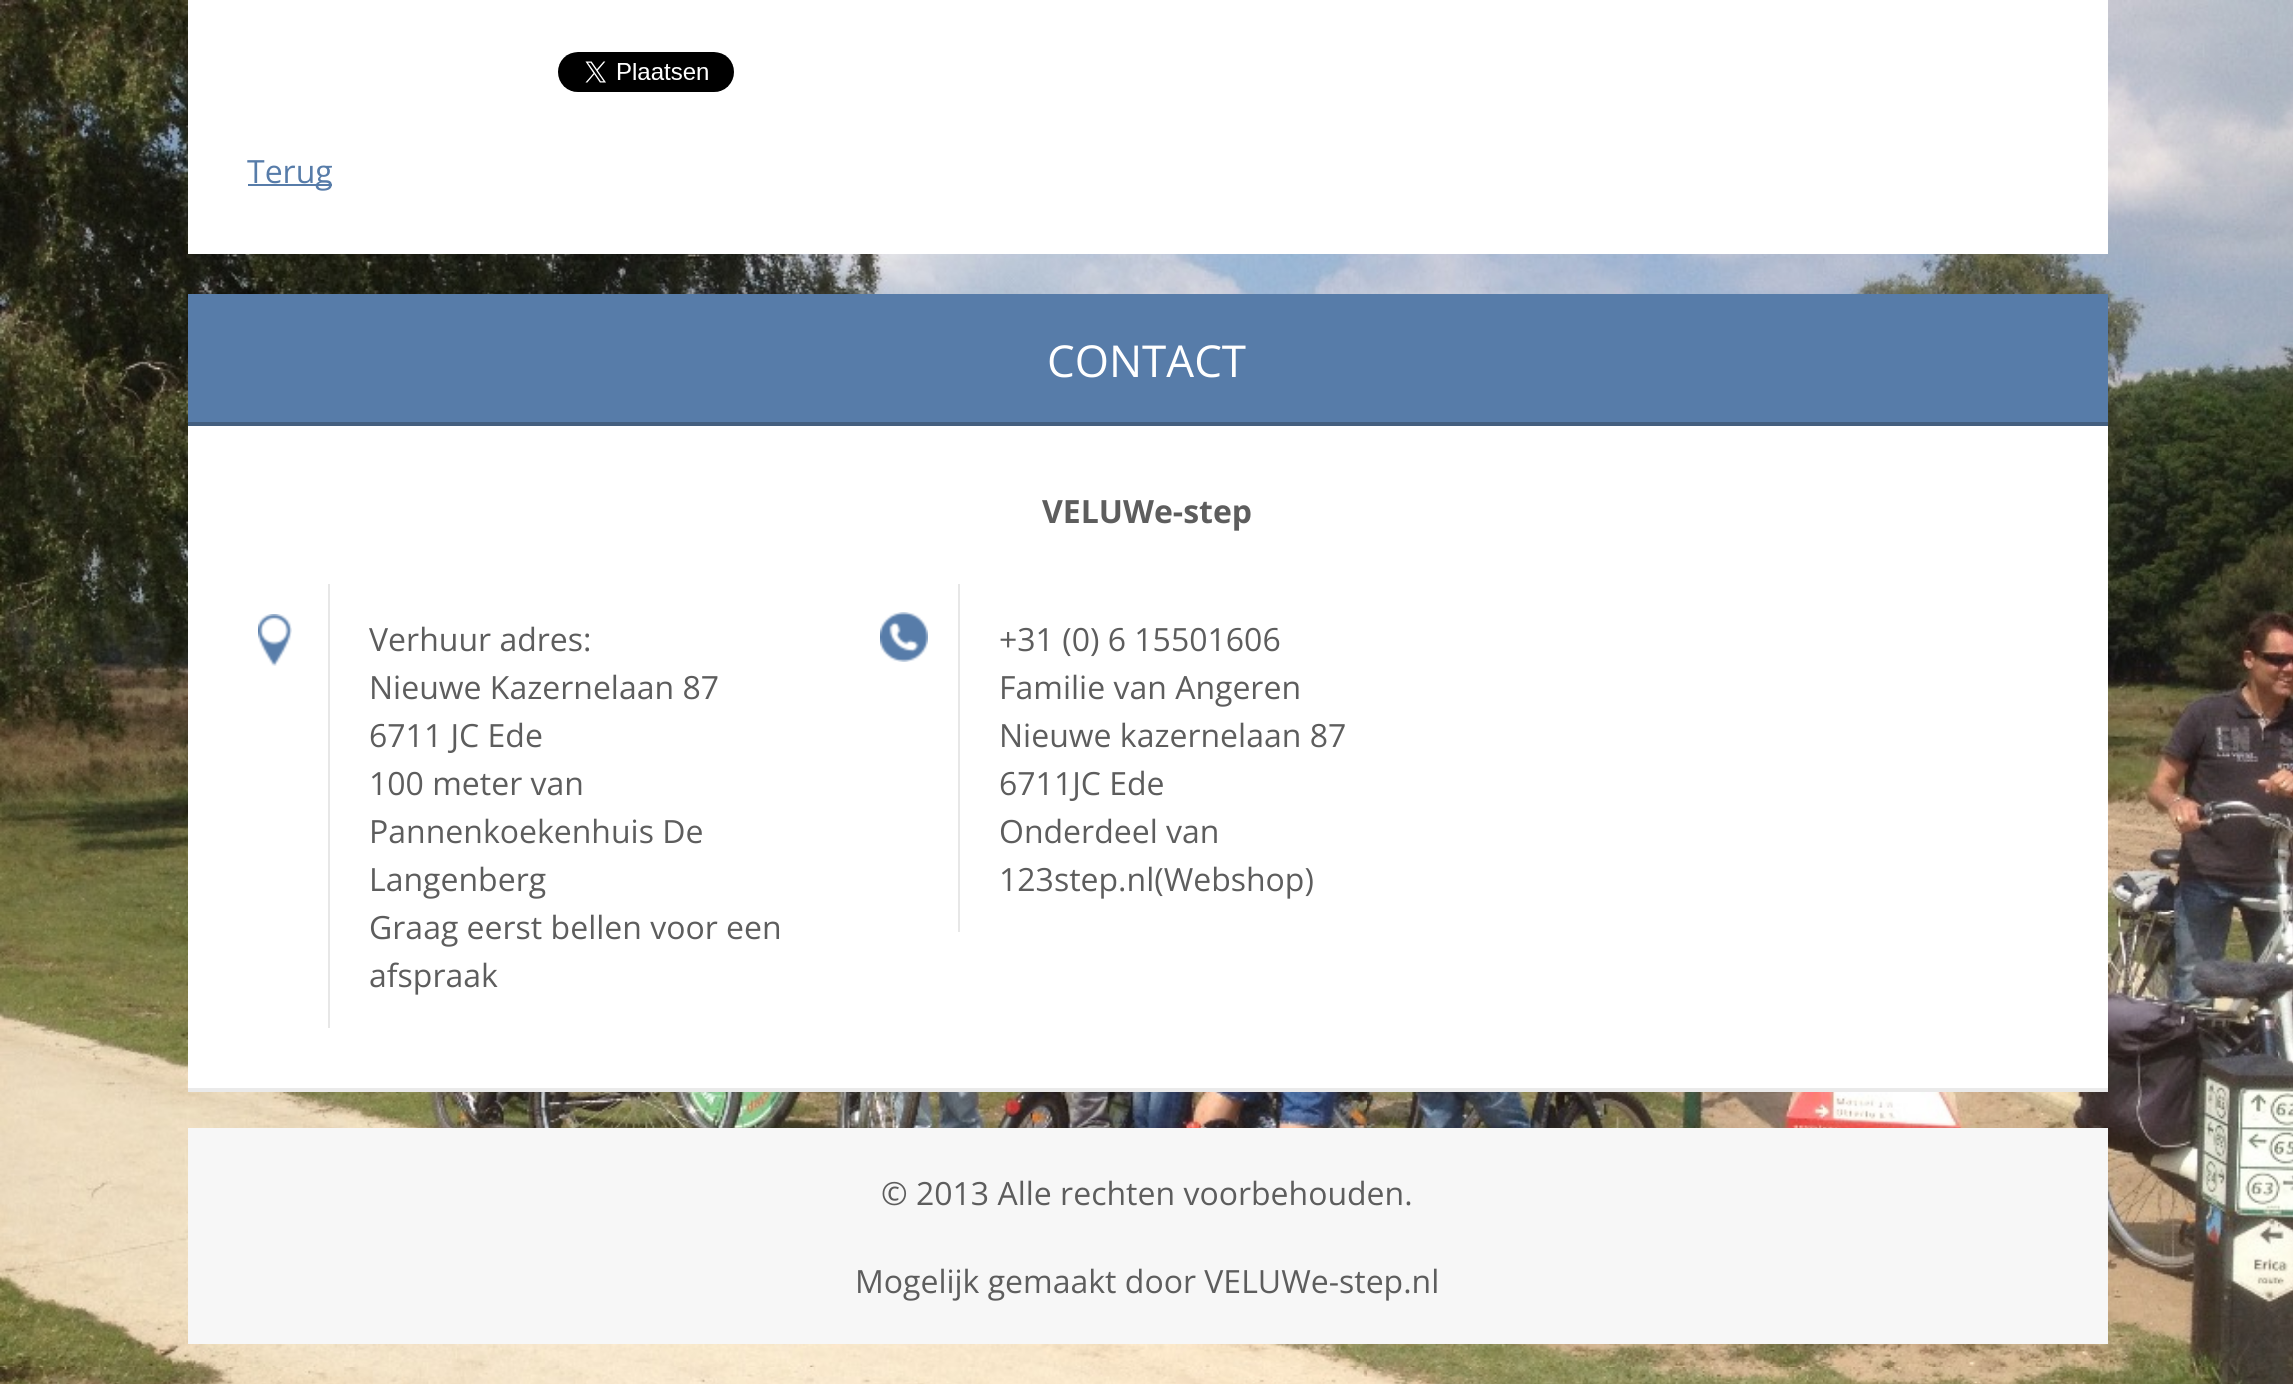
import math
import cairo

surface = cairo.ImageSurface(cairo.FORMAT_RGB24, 2293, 1384)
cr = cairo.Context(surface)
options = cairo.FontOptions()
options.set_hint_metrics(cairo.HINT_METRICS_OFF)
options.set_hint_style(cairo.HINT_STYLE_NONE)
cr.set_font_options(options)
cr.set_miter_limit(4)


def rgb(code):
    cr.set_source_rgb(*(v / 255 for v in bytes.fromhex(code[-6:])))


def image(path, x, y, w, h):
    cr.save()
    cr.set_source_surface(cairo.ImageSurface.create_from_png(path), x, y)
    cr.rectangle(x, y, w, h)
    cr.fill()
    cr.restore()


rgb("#ffffff")
cr.paint()
image("img/1.png", 0, 0, 2293, 1384)
rgb("#ffffff")
cr.rectangle(188, 0, 1920, 254)
cr.fill()
image("img/2.png", 558, 52, 176, 40)
for x, y, w, h, color in [
    (248, 184, 84, 2, "#577ca9"),
    (188, 1088, 1920, 4, "#eaeaea"),
    (188, 426, 1920, 662, "#ffffff"),
    (188, 294, 1920, 128, "#577ca9"),
    (188, 422, 1920, 4, "#445f7f"),
]:
    rgb(color)
    cr.rectangle(x, y, w, h)
    cr.fill()
image("img/3.png", 258, 614, 34, 52)
rgb("#e7e7e7")
cr.rectangle(328, 584, 2, 444)
cr.fill()
image("img/4.png", 880, 612, 48, 50)
cr.rectangle(958, 584, 2, 348)
cr.fill()
rgb("#f7f7f7")
cr.rectangle(188, 1128, 1920, 216)
cr.fill()
cr.select_font_face("Open Sans")
cr.set_font_size(32)
rgb("#577ca9")
cr.move_to(247, 183)
cr.show_text("Terug")
cr.set_font_size(44)
rgb("#ffffff")
cr.move_to(1047, 377)
cr.show_text("CONTACT")
cr.select_font_face("Open Sans", cairo.FONT_SLANT_NORMAL, cairo.FONT_WEIGHT_BOLD)
cr.set_font_size(32)
rgb("#5d5d5d")
cr.move_to(1042, 523)
cr.show_text("VELUWe-step")
cr.select_font_face("Open Sans")
for x, y, s in [
    (369, 651, "Verhuur adres:"),
    (369, 699, "Nieuwe Kazernelaan 87"),
    (369, 747, "6711 JC Ede"),
    (369, 795, "100 meter van"),
    (369, 843, "Pannenkoekenhuis De"),
    (369, 891, "Langenberg"),
    (369, 939, "Graag eerst bellen voor een"),
    (369, 987, "afspraak"),
    (999, 651, "+31 (0) 6 15501606"),
    (999, 699, "Familie van Angeren"),
    (999, 747, "Nieuwe kazernelaan 87"),
    (999, 795, "6711JC Ede"),
    (999, 843, "Onderdeel van"),
    (999, 891, "123step.nl(Webshop)"),
    (881, 1205, "© 2013 Alle rechten voorbehouden."),
    (855, 1293, "Mogelijk gemaakt door VELUWe-step.nl"),
]:
    cr.move_to(x, y)
    cr.show_text(s)
surface.write_to_png("page.png")
